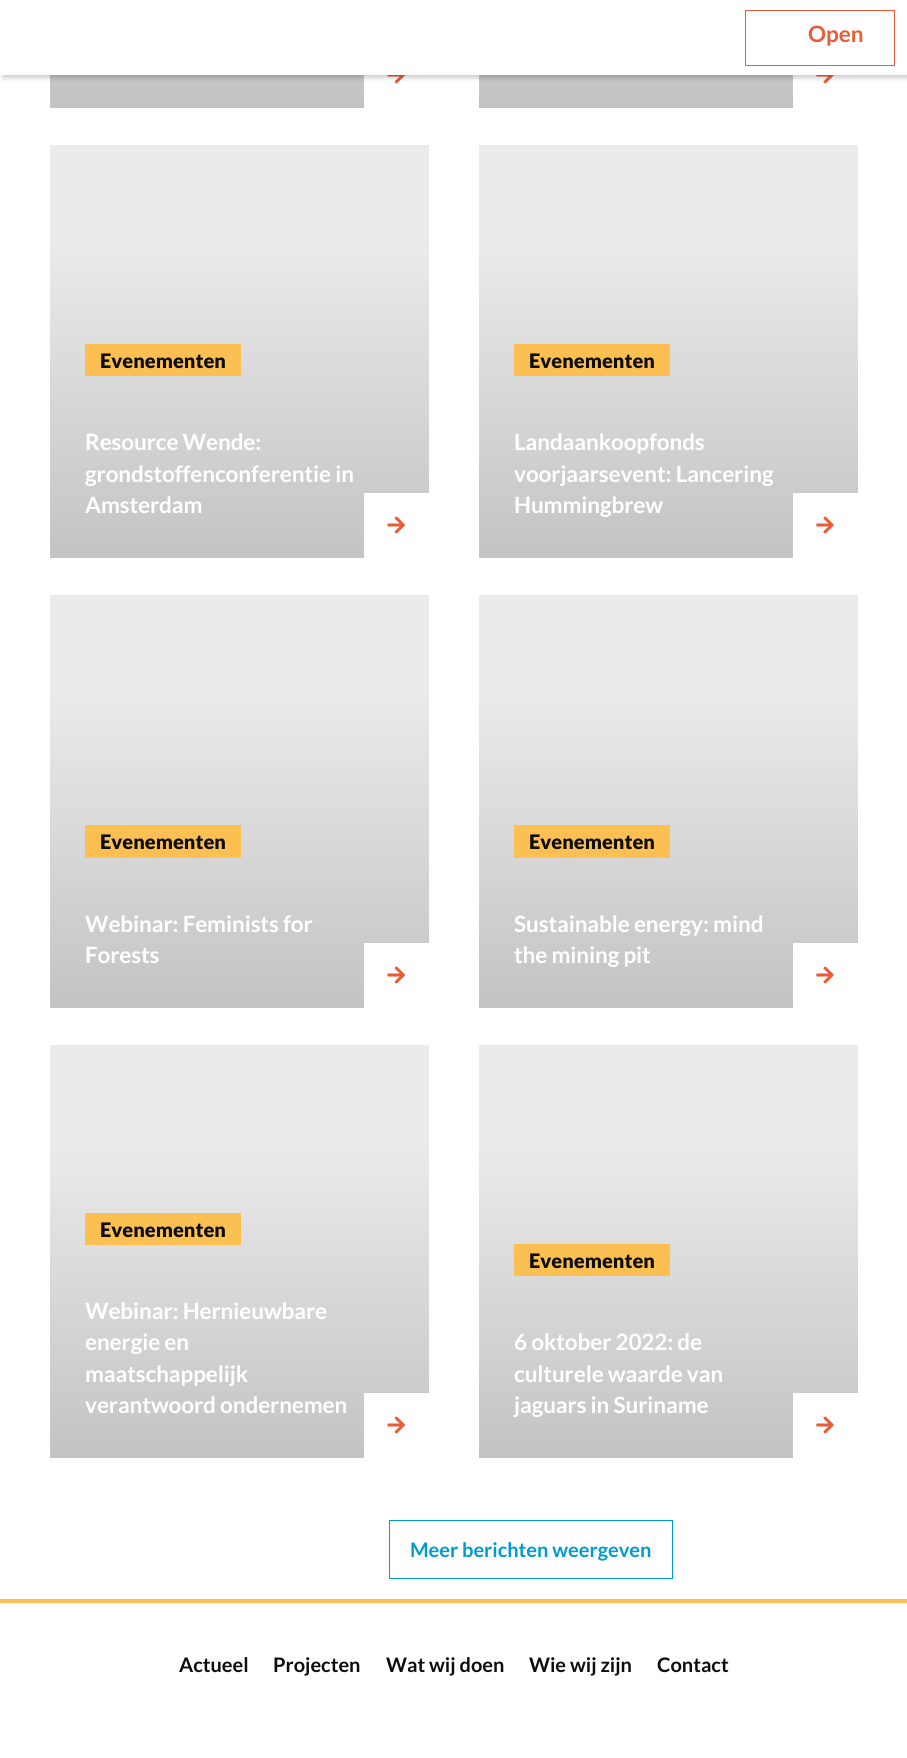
import math
import cairo

surface = cairo.ImageSurface(cairo.FORMAT_RGB24, 907, 1758)
cr = cairo.Context(surface)
options = cairo.FontOptions()
options.set_hint_metrics(cairo.HINT_METRICS_OFF)
options.set_hint_style(cairo.HINT_STYLE_NONE)
cr.set_font_options(options)
cr.set_miter_limit(4)


def rgb(code):
    cr.set_source_rgb(*(v / 255 for v in bytes.fromhex(code[-6:])))


def tracked(x, y, s, letter, word):
    cr.move_to(x, y)
    for ch in s:
        cr.show_text(ch)
        cr.rel_move_to(letter + word * (ch == ' '), 0)


def rrect(x, y, w, h, r):
    cr.new_sub_path()
    for i, (u, v) in enumerate([(x + w - r, y + h - r), (x + r, y + h - r), (x + r, y + r), (x + w - r, y + r)]):
        cr.arc(u, v, r, i * math.pi / 2, (i + 1) * math.pi / 2)
    cr.close_path()


def soft_shadow(x, y, w, h, r, blur, alpha):
    cr.push_group_with_content(cairo.CONTENT_ALPHA)
    cr.set_operator(cairo.OPERATOR_SOURCE)
    for i in range(15, -16, -2):
        e = blur * i / 6
        if min(w, h) + 2 * e > 0:
            cr.set_source_rgba(0, 0, 0, alpha * math.erfc((i - 1) / 8.5) / 2)
            rrect(x - e, y - e, w + 2 * e, h + 2 * e, max(0, min(r + e + blur * .6, min(w, h) / 2 + e)))
            cr.fill()
    cr.mask(cr.pop_group())


def image(path, x, y, w, h):
    cr.save()
    cr.set_source_surface(cairo.ImageSurface.create_from_png(path), x, y)
    cr.rectangle(x, y, w, h)
    cr.fill()
    cr.restore()


rgb("#ffffff")
cr.paint()
gradient = cairo.LinearGradient(239, 108, 239, -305)
gradient.add_color_stop_rgba(0, 0.761, 0.761, 0.761, 1)
gradient.add_color_stop_rgba(0.77, 0.922, 0.922, 0.922, 1)
cr.set_source(gradient)
cr.rectangle(50, 75, 314, 33)
cr.fill()
image("img/1.png", 387, 75, 18, 9)
gradient = cairo.LinearGradient(668, 108, 668, -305)
gradient.add_color_stop_rgba(0, 0.761, 0.761, 0.761, 1)
gradient.add_color_stop_rgba(0.77, 0.922, 0.922, 0.922, 1)
cr.set_source(gradient)
cr.rectangle(479, 75, 314, 33)
cr.fill()
image("img/2.png", 816, 75, 18, 9)
rgb("#000000")
soft_shadow(3, 3, 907, 75, 0, 2.5, 0.2)
rgb("#ffffff")
cr.rectangle(0, 0, 907, 75)
cr.fill()
cr.rectangle(745.5, 10.5, 149, 55)
rgb("#ea5b37")
cr.set_line_width(1)
cr.stroke()
gradient = cairo.LinearGradient(239, 558, 239, 145)
gradient.add_color_stop_rgba(0, 0.765, 0.765, 0.765, 1)
gradient.add_color_stop_rgba(0.77, 0.922, 0.922, 0.922, 1)
cr.set_source(gradient)
cr.rectangle(50, 145, 379, 413)
cr.fill()
rgb("#fbc051")
cr.rectangle(85, 344, 156, 32)
cr.fill()
rgb("#ffffff")
cr.rectangle(364, 493, 65, 65)
cr.fill()
image("img/3.png", 387, 516, 18, 18)
gradient = cairo.LinearGradient(668, 558, 668, 145)
gradient.add_color_stop_rgba(0, 0.765, 0.765, 0.765, 1)
gradient.add_color_stop_rgba(0.77, 0.922, 0.922, 0.922, 1)
cr.set_source(gradient)
cr.rectangle(479, 145, 379, 413)
cr.fill()
rgb("#fbc051")
cr.rectangle(514, 344, 156, 32)
cr.fill()
rgb("#ffffff")
cr.rectangle(793, 493, 65, 65)
cr.fill()
image("img/4.png", 816, 516, 18, 18)
gradient = cairo.LinearGradient(239, 1008, 239, 595)
gradient.add_color_stop_rgba(0, 0.765, 0.765, 0.765, 1)
gradient.add_color_stop_rgba(0.77, 0.922, 0.922, 0.922, 1)
cr.set_source(gradient)
cr.rectangle(50, 595, 379, 413)
cr.fill()
rgb("#fbc051")
cr.rectangle(85, 825, 156, 33)
cr.fill()
rgb("#ffffff")
cr.rectangle(364, 943, 65, 65)
cr.fill()
image("img/3.png", 387, 966, 18, 18)
gradient = cairo.LinearGradient(668, 1008, 668, 595)
gradient.add_color_stop_rgba(0, 0.765, 0.765, 0.765, 1)
gradient.add_color_stop_rgba(0.77, 0.922, 0.922, 0.922, 1)
cr.set_source(gradient)
cr.rectangle(479, 595, 379, 413)
cr.fill()
rgb("#fbc051")
cr.rectangle(514, 825, 156, 33)
cr.fill()
rgb("#ffffff")
cr.rectangle(793, 943, 65, 65)
cr.fill()
image("img/4.png", 816, 966, 18, 18)
gradient = cairo.LinearGradient(239, 1458, 239, 1045)
gradient.add_color_stop_rgba(0, 0.765, 0.765, 0.765, 1)
gradient.add_color_stop_rgba(0.77, 0.922, 0.922, 0.922, 1)
cr.set_source(gradient)
cr.rectangle(50, 1045, 379, 413)
cr.fill()
rgb("#fbc051")
cr.rectangle(85, 1213, 156, 32)
cr.fill()
rgb("#ffffff")
cr.rectangle(364, 1393, 65, 65)
cr.fill()
image("img/3.png", 387, 1416, 18, 18)
gradient = cairo.LinearGradient(668, 1458, 668, 1045)
gradient.add_color_stop_rgba(0, 0.765, 0.765, 0.765, 1)
gradient.add_color_stop_rgba(0.77, 0.922, 0.922, 0.922, 1)
cr.set_source(gradient)
cr.rectangle(479, 1045, 379, 413)
cr.fill()
rgb("#fbc051")
cr.rectangle(514, 1244, 156, 32)
cr.fill()
rgb("#ffffff")
cr.rectangle(793, 1393, 65, 65)
cr.fill()
image("img/4.png", 816, 1416, 18, 18)
cr.rectangle(389.5, 1520.5, 283, 58)
rgb("#009bcf")
cr.stroke()
rgb("#fbc051")
cr.rectangle(0, 1599, 907, 4)
cr.fill()
cr.select_font_face("Lato", cairo.FONT_SLANT_NORMAL, cairo.FONT_WEIGHT_BOLD)
cr.set_font_size(22.5)
rgb("#ea5b37")
cr.move_to(808, 42)
cr.show_text("Open")
cr.select_font_face("Lato Black")
cr.set_font_size(20)
rgb("#0d0d0d")
cr.move_to(100, 368)
cr.show_text("Evenementen")
cr.select_font_face("Lato", cairo.FONT_SLANT_NORMAL, cairo.FONT_WEIGHT_BOLD)
cr.set_font_size(22.5)
rgb("#ffffff")
for x, y, s in [
    (85, 450, "Resource Wende:"),
    (85, 482, "grondstoffenconferentie in"),
    (85, 513, "Amsterdam"),
]:
    tracked(x, y, s, -0.1, 0)
cr.select_font_face("Lato Black")
cr.set_font_size(20)
rgb("#0d0d0d")
cr.move_to(529, 368)
cr.show_text("Evenementen")
cr.select_font_face("Lato", cairo.FONT_SLANT_NORMAL, cairo.FONT_WEIGHT_BOLD)
cr.set_font_size(22.5)
rgb("#ffffff")
for x, y, s in [
    (514, 450, "Landaankoopfonds"),
    (514, 482, "voorjaarsevent: Lancering"),
    (514, 513, "Hummingbrew"),
]:
    tracked(x, y, s, -0.1, 0)
cr.select_font_face("Lato Black")
cr.set_font_size(20)
rgb("#0d0d0d")
cr.move_to(100, 849)
cr.show_text("Evenementen")
cr.select_font_face("Lato", cairo.FONT_SLANT_NORMAL, cairo.FONT_WEIGHT_BOLD)
cr.set_font_size(22.5)
rgb("#ffffff")
tracked(85, 932, "Webinar: Feminists for", -0.1, 0)
tracked(85, 963, "Forests", -0.1, 0)
cr.select_font_face("Lato Black")
cr.set_font_size(20)
rgb("#0d0d0d")
cr.move_to(529, 849)
cr.show_text("Evenementen")
cr.select_font_face("Lato", cairo.FONT_SLANT_NORMAL, cairo.FONT_WEIGHT_BOLD)
cr.set_font_size(22.5)
rgb("#ffffff")
tracked(514, 932, "Sustainable energy: mind", -0.1, 0)
tracked(514, 963, "the mining pit", -0.1, 0)
cr.select_font_face("Lato Black")
cr.set_font_size(20)
rgb("#0d0d0d")
cr.move_to(100, 1237)
cr.show_text("Evenementen")
cr.select_font_face("Lato", cairo.FONT_SLANT_NORMAL, cairo.FONT_WEIGHT_BOLD)
cr.set_font_size(22.5)
rgb("#ffffff")
for x, y, s in [
    (85, 1319, "Webinar: Hernieuwbare"),
    (85, 1350, "energie en"),
    (85, 1382, "maatschappelijk"),
    (85, 1413, "verantwoord ondernemen"),
]:
    tracked(x, y, s, -0.1, 0)
cr.select_font_face("Lato Black")
cr.set_font_size(20)
rgb("#0d0d0d")
cr.move_to(529, 1268)
cr.show_text("Evenementen")
cr.select_font_face("Lato", cairo.FONT_SLANT_NORMAL, cairo.FONT_WEIGHT_BOLD)
cr.set_font_size(22.5)
rgb("#ffffff")
for x, y, s in [
    (514, 1350, "6 oktober 2022: de"),
    (514, 1382, "culturele waarde van"),
    (514, 1413, "jaguars in Suriname"),
]:
    tracked(x, y, s, -0.1, 0)
cr.set_font_size(20)
rgb("#009bcf")
cr.move_to(410, 1557)
cr.show_text("Meer berichten weergeven")
rgb("#0d0d0d")
for x, y, s in [
    (179, 1672, "Actueel"),
    (273, 1672, "Projecten"),
    (386, 1672, "Wat wij doen"),
    (529, 1672, "Wie wij zijn"),
    (657, 1672, "Contact"),
]:
    cr.move_to(x, y)
    cr.show_text(s)
surface.write_to_png("page.png")
